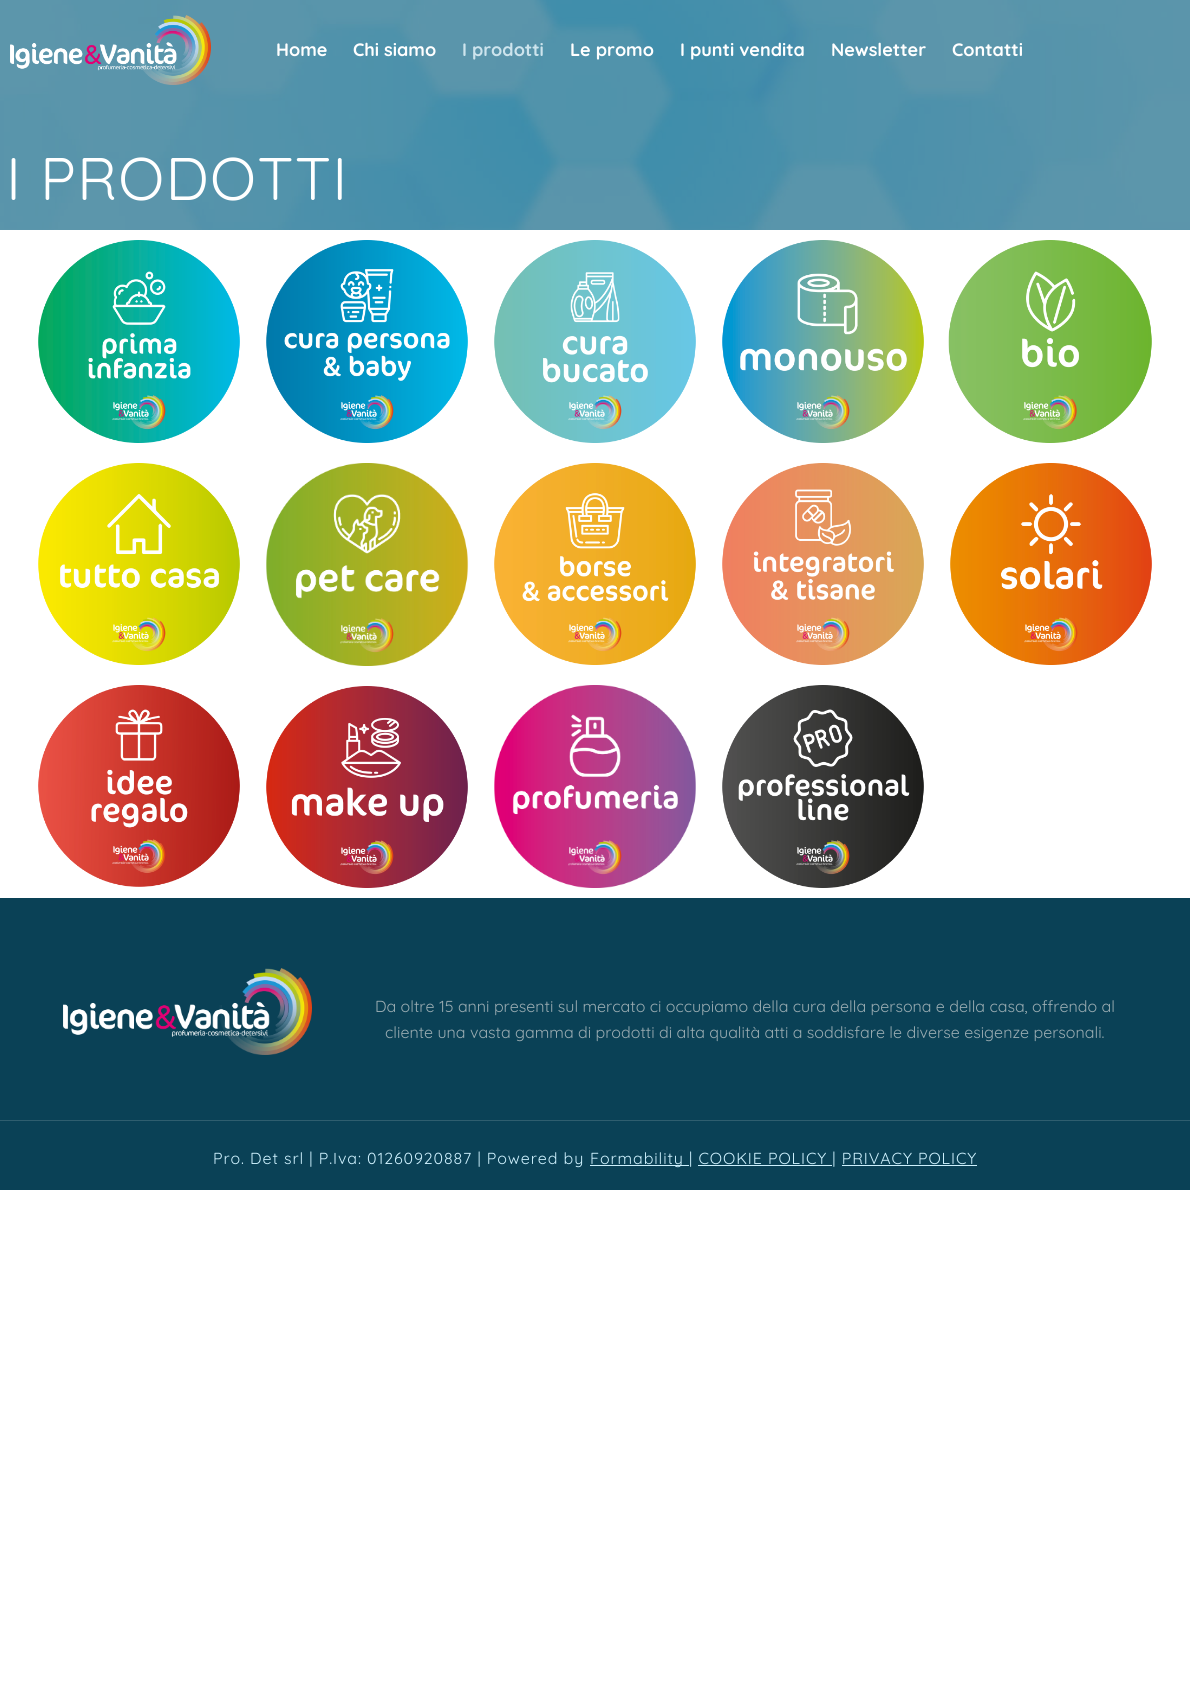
import math
import cairo

surface = cairo.ImageSurface(cairo.FORMAT_RGB24, 1190, 1684)
cr = cairo.Context(surface)
options = cairo.FontOptions()
options.set_hint_metrics(cairo.HINT_METRICS_OFF)
options.set_hint_style(cairo.HINT_STYLE_NONE)
cr.set_font_options(options)
cr.set_miter_limit(4)


def rgb(code):
    cr.set_source_rgb(*(v / 255 for v in bytes.fromhex(code[-6:])))


def tracked(x, y, s, letter, word):
    cr.move_to(x, y)
    for ch in s:
        cr.show_text(ch)
        cr.rel_move_to(letter + word * (ch == ' '), 0)


def image(path, x, y, w, h):
    cr.save()
    cr.set_source_surface(cairo.ImageSurface.create_from_png(path), x, y)
    cr.rectangle(x, y, w, h)
    cr.fill()
    cr.restore()


rgb("#ffffff")
cr.paint()
image("img/2.png", 0, 0, 1190, 230)
image("img/1.png", 10, 15, 201, 70)
image("img/3.png", 38, 240, 202, 203)
image("img/4.png", 38, 463, 202, 202)
image("img/5.png", 38, 685, 202, 202)
image("img/6.png", 266, 240, 202, 203)
image("img/7.png", 266, 463, 203, 203)
image("img/8.png", 266, 686, 202, 202)
image("img/9.png", 494, 240, 202, 203)
image("img/10.png", 494, 463, 202, 202)
image("img/11.png", 494, 685, 202, 203)
image("img/12.png", 722, 240, 202, 203)
image("img/13.png", 722, 463, 202, 202)
image("img/14.png", 722, 685, 202, 203)
image("img/15.png", 948, 240, 204, 203)
image("img/16.png", 950, 463, 202, 202)
rgb("#0a4156")
cr.rectangle(0, 898, 1190, 222)
cr.fill()
image("img/17.png", 63, 968, 249, 87)
for x, y, w, h, color in [
    (0, 1121, 1190, 69, "#0a4156"),
    (0, 1120, 1190, 1, "#2f5e6f"),
    (590, 1165, 99, 1, "#cdf0fd"),
    (698, 1165, 134, 1, "#cdf0fd"),
    (842, 1165, 135, 1, "#cdf0fd"),
]:
    rgb(color)
    cr.rectangle(x, y, w, h)
    cr.fill()
cr.select_font_face("Quicksand", cairo.FONT_SLANT_NORMAL, cairo.FONT_WEIGHT_BOLD)
cr.set_font_size(18)
rgb("#ffffff")
cr.move_to(276, 56)
cr.show_text("Home")
cr.move_to(353, 56)
cr.show_text("Chi siamo")
rgb("#cde4ed")
cr.move_to(462, 56)
cr.show_text("I prodotti")
rgb("#ffffff")
for x, y, s in [
    (570, 56, "Le promo"),
    (680, 56, "I punti vendita"),
    (831, 56, "Newsletter"),
    (952, 56, "Contatti"),
]:
    cr.move_to(x, y)
    cr.show_text(s)
cr.select_font_face("Quicksand")
cr.set_font_size(60)
tracked(6, 200, "I PRODOTTI", 1.25, 0)
cr.set_font_size(16)
rgb("#99abb1")
cr.move_to(375, 1012)
cr.show_text("Da oltre 15 anni presenti sul mercato ci occupiamo della cura della persona e della casa, offrendo al")
cr.move_to(385, 1038)
cr.show_text("cliente una vasta gamma di prodotti di alta qualità atti a soddisfare le diverse esigenze personali.")
rgb("#cdf0fd")
tracked(213, 1164, "Pro. Det srl | P.Iva: 01260920887 | Powered by", 0.9, 0)
tracked(590, 1164, "Formability | COOKIE POLICY | PRIVACY POLICY", 0.9, 0)
surface.write_to_png("page.png")
